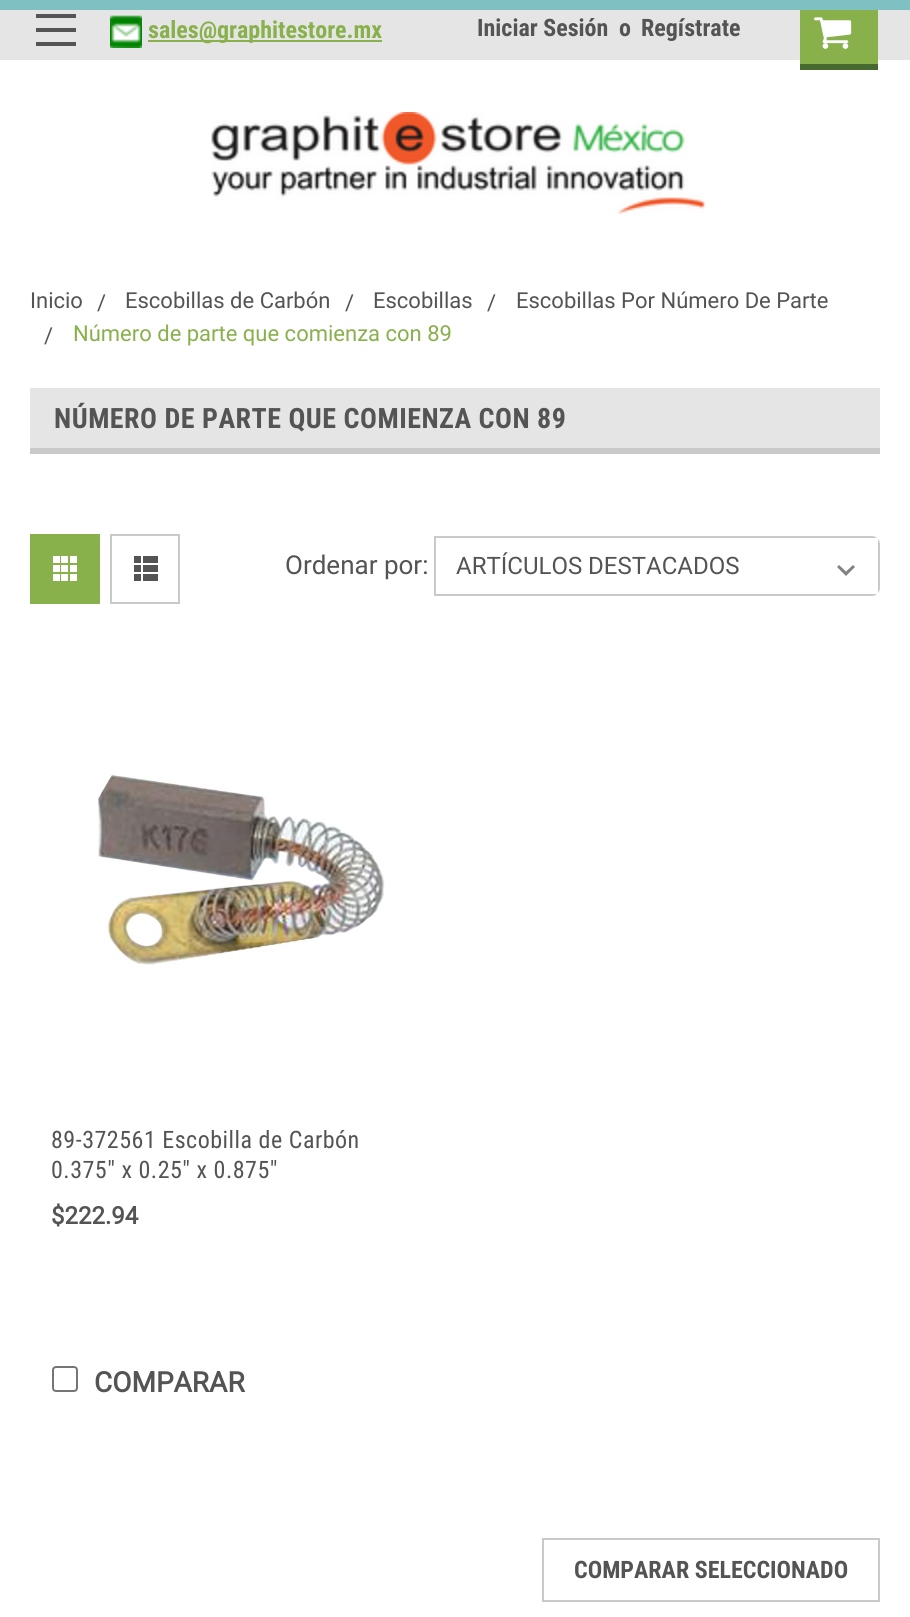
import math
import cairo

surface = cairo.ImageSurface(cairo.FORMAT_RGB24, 910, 1617)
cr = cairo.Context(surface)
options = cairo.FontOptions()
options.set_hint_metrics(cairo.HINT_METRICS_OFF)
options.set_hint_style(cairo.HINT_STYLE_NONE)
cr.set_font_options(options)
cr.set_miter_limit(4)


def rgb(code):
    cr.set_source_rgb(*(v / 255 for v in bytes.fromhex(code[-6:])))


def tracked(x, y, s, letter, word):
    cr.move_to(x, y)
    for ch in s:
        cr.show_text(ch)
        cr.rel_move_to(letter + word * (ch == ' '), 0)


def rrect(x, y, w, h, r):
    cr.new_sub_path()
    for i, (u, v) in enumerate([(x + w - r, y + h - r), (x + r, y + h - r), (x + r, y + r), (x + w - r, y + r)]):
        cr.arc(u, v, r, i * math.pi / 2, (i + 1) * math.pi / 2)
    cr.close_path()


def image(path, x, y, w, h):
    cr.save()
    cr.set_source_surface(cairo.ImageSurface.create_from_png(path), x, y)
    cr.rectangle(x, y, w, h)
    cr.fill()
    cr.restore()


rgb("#ffffff")
cr.paint()
for x, y, w, h, color in [
    (0, 0, 910, 10, "#7fc0c2"),
    (0, 10, 910, 50, "#e5e5e5"),
    (36, 28, 40, 4, "#545454"),
    (36, 14, 40, 4, "#545454"),
    (36, 42, 40, 4, "#545454"),
]:
    rgb(color)
    cr.rectangle(x, y, w, h)
    cr.fill()
image("img/1.png", 110, 15, 32, 33)
for x, y, w, h, color in [
    (148, 40, 234, 2, "#88b04b"),
    (800, 10, 78, 54, "#88b04b"),
    (800, 64, 78, 6, "#476a30"),
]:
    rgb(color)
    cr.rectangle(x, y, w, h)
    cr.fill()
image("img/2.png", 814, 17, 38, 32)
image("img/3.png", 211, 112, 495, 102)
for x, y, w, h, color in [
    (30, 388, 850, 60, "#e5e5e5"),
    (30, 448, 850, 6, "#c9c9c9"),
    (30, 534, 70, 70, "#88b04b"),
]:
    rgb(color)
    cr.rectangle(x, y, w, h)
    cr.fill()
image("img/4.png", 53, 556, 24, 25)
cr.rectangle(111, 535, 68, 68)
rgb("#c9c9c9")
cr.stroke()
image("img/5.png", 134, 556, 24, 25)
rgb("#828282")
cr.new_path()
cr.move_to(853, 565)
cr.line_to(846, 571.5)
cr.line_to(839, 565)
cr.line_to(837, 567)
cr.line_to(846, 576)
cr.line_to(855, 567)
cr.close_path()
cr.fill()
rgb("#c9c9c9")
cr.set_fill_rule(cairo.FILL_RULE_EVEN_ODD)
cr.new_path()
cr.move_to(434, 536)
cr.line_to(434, 596)
cr.line_to(872, 596)
cr.curve_to(874, 596, 876, 595, 877, 594)
cr.line_to(436, 594)
cr.line_to(436, 538)
cr.line_to(877, 538)
cr.curve_to(876, 537, 874, 536, 872, 536)
cr.close_path()
cr.move_to(880, 544)
cr.curve_to(880, 542, 879, 540, 878, 539)
cr.line_to(878, 593)
cr.curve_to(879, 592, 880, 590, 880, 588)
cr.close_path()
cr.fill()
image("img/6.png", 98, 774, 287, 191)
rrect(53, 1367, 24, 24, 3)
rgb("#767676")
cr.stroke()
cr.rectangle(543, 1539, 336, 62)
rgb("#c9c9c9")
cr.stroke()
cr.select_font_face("Roboto Condensed", cairo.FONT_SLANT_NORMAL, cairo.FONT_WEIGHT_BOLD)
cr.set_font_size(24)
rgb("#88b04b")
cr.move_to(148, 38)
cr.show_text("sales@graphitestore.mx")
rgb("#545454")
for x, y, s in [
    (477, 36, "Iniciar Sesión"),
    (619, 36, "o"),
    (641, 36, "Regístrate"),
]:
    cr.move_to(x, y)
    cr.show_text(s)
cr.select_font_face("Roboto")
cr.set_font_size(22)
for x, y, s in [
    (30, 308, "Inicio"),
    (97, 310, "/"),
    (125, 308, "Escobillas de Carbón"),
    (345, 310, "/"),
    (373, 308, "Escobillas"),
    (487, 310, "/"),
    (516, 308, "Escobillas Por Número De Parte"),
    (44, 343, "/"),
]:
    cr.move_to(x, y)
    cr.show_text(s)
rgb("#88b04b")
cr.move_to(73, 341)
cr.show_text("Número de parte que comienza con 89")
cr.select_font_face("Roboto Condensed", cairo.FONT_SLANT_NORMAL, cairo.FONT_WEIGHT_BOLD)
cr.set_font_size(28)
rgb("#545454")
tracked(54, 428, "NÚMERO DE PARTE QUE COMIENZA CON 89", 0.5, 0)
cr.select_font_face("Roboto")
cr.set_font_size(26)
cr.move_to(285, 574)
cr.show_text("Ordenar por:")
cr.set_font_size(24)
cr.move_to(456, 574)
cr.show_text("ARTÍCULOS DESTACADOS")
cr.select_font_face("Roboto Condensed")
tracked(51, 1148, "89-372561 Escobilla de Carbón", 0.5, 0)
tracked(51, 1178, "0.375\" x 0.25\" x 0.875\"", 0.5, 0)
cr.select_font_face("Roboto", cairo.FONT_SLANT_NORMAL, cairo.FONT_WEIGHT_BOLD)
cr.move_to(51, 1224)
cr.show_text("$222.94")
cr.set_font_size(28)
cr.move_to(94, 1392)
cr.show_text("COMPARAR")
cr.select_font_face("Roboto Condensed", cairo.FONT_SLANT_NORMAL, cairo.FONT_WEIGHT_BOLD)
cr.set_font_size(24)
cr.move_to(574, 1578)
cr.show_text("COMPARAR SELECCIONADO")
surface.write_to_png("page.png")
